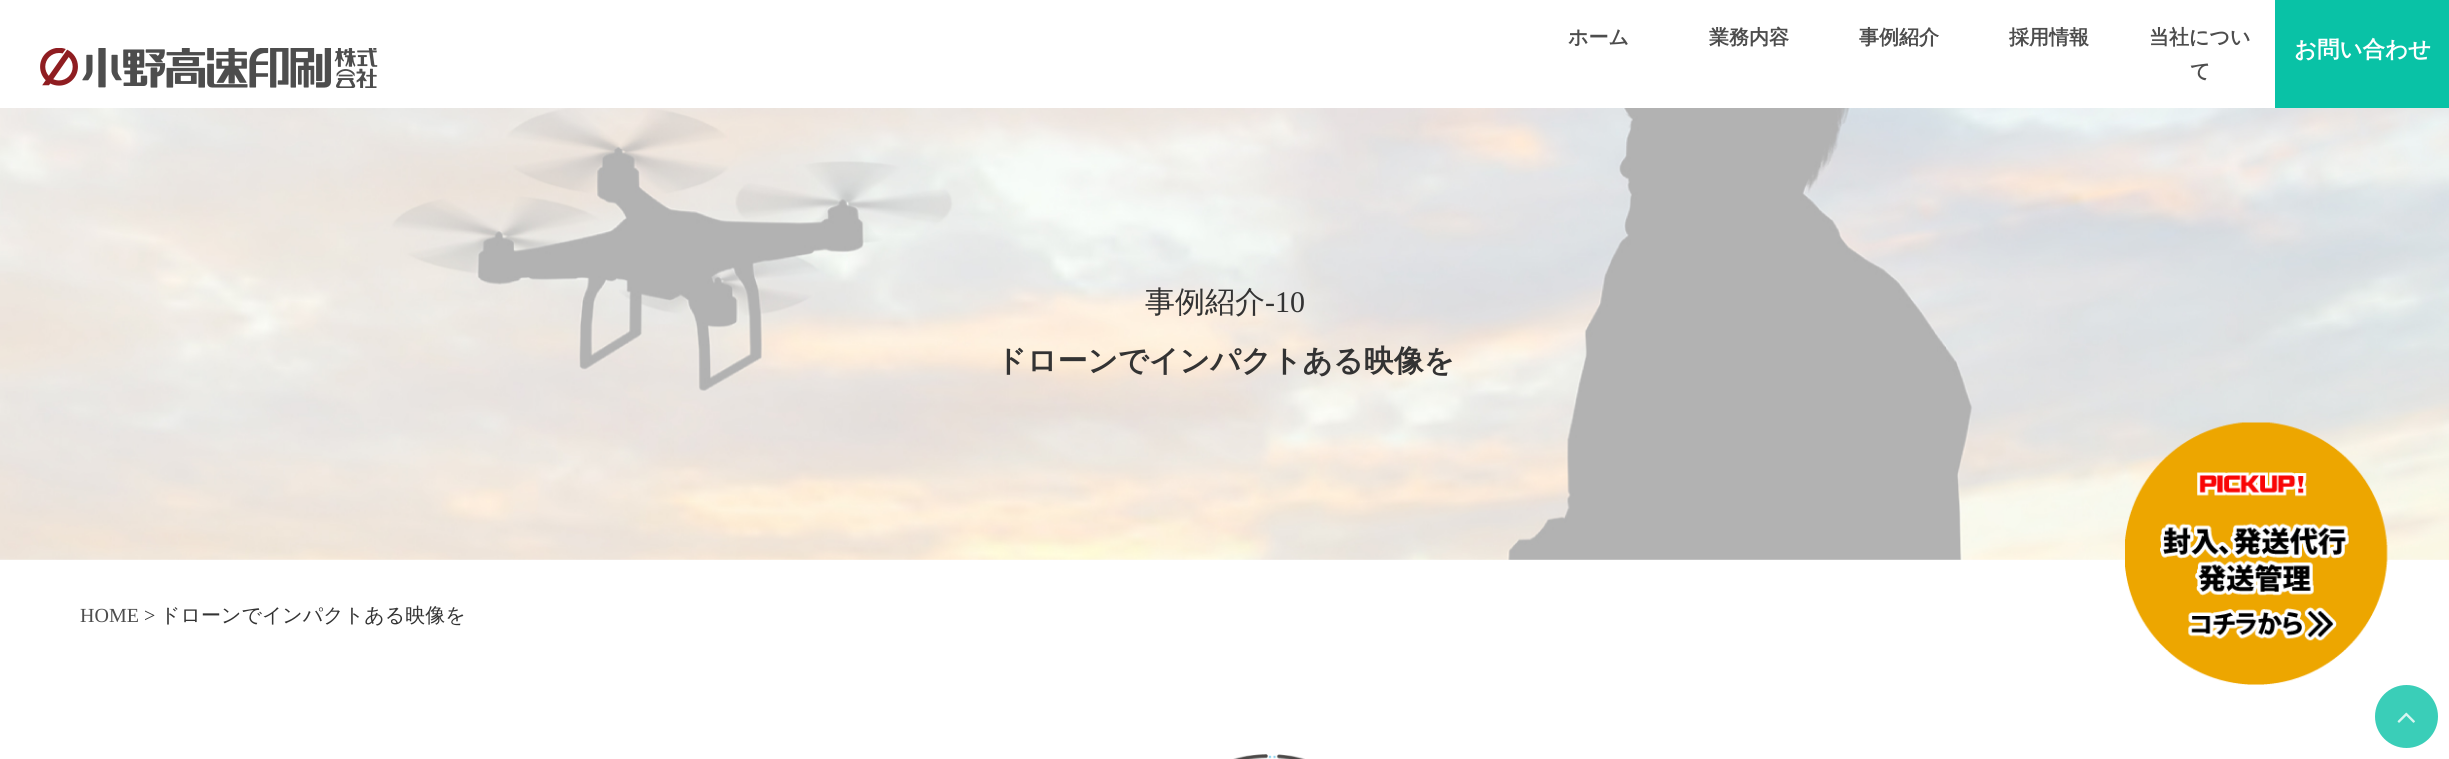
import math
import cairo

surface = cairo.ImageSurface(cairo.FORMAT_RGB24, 2449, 759)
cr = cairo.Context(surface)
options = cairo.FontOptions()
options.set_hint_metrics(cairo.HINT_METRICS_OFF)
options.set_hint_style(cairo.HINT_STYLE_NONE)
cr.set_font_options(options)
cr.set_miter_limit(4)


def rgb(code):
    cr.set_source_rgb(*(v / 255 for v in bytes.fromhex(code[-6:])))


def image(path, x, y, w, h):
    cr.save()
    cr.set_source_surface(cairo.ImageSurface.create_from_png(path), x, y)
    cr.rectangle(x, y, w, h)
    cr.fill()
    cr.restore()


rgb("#ffffff")
cr.paint()
image("img/1.png", 40, 48, 338, 40)
rgb("#09c2a6")
cr.rectangle(2275, 0, 174, 108)
cr.fill()
image("img/2.png", 0, 108, 2449, 452)
image("img/3.png", 1233, 754, 72, 5)
image("img/4.png", 2125, 422, 263, 263)
rgb("#3aceb8")
cr.arc(2406.5, 716.5, 31.5, 0, 2 * math.pi)
cr.fill()
image("img/5.png", 2397, 712, 18, 11)
cr.select_font_face("WenQuanYi Zen Hei", cairo.FONT_SLANT_NORMAL, cairo.FONT_WEIGHT_BOLD)
cr.set_font_size(20)
rgb("#4d4d4d")
for x, y, s in [
    (1568, 44, "ホーム"),
    (1709, 44, "業務内容"),
    (1859, 44, "事例紹介"),
    (2009, 44, "採用情報"),
    (2149, 44, "当社につい"),
    (2190, 78, "て"),
]:
    cr.move_to(x, y)
    cr.show_text(s)
cr.set_font_size(22.5)
rgb("#ffffff")
cr.move_to(2294, 57)
cr.show_text("お問い合わせ")
cr.select_font_face("WenQuanYi Zen Hei Medium")
cr.set_font_size(30)
rgb("#333333")
cr.move_to(1145, 312)
cr.show_text("事例紹介")
cr.select_font_face("Liberation Serif")
cr.move_to(1265, 312)
cr.show_text("-10")
cr.select_font_face("WenQuanYi Zen Hei", cairo.FONT_SLANT_NORMAL, cairo.FONT_WEIGHT_BOLD)
cr.move_to(996, 371)
cr.show_text("ドローンでインパクトある映像を")
cr.select_font_face("Liberation Serif")
cr.set_font_size(20)
rgb("#4d4d4d")
cr.move_to(80, 622)
cr.show_text("HOME")
rgb("#333333")
cr.move_to(144, 622)
cr.show_text(">")
cr.select_font_face("WenQuanYi Zen Hei Medium")
cr.move_to(160, 622)
cr.show_text("ドローンでインパクトある映像を")
surface.write_to_png("page.png")
